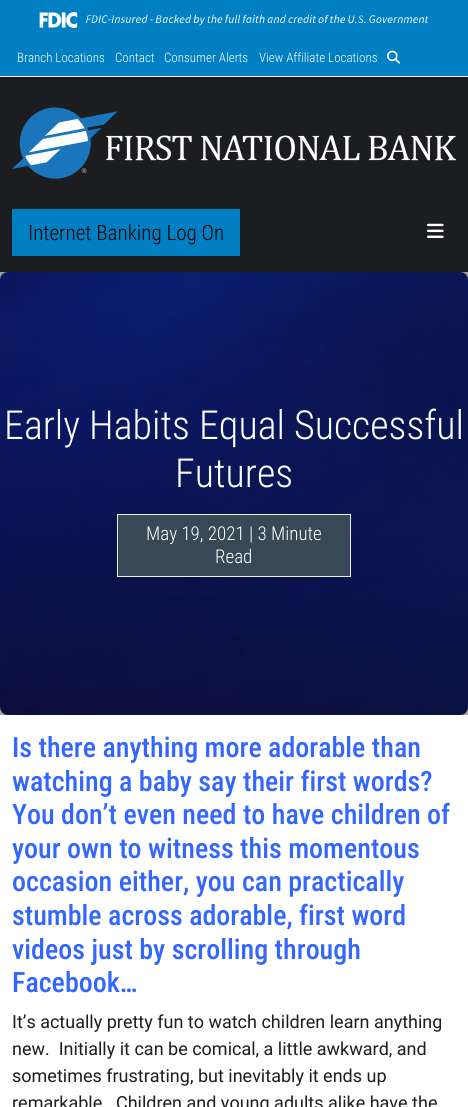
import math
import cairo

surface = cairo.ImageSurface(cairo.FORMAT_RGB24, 468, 1107)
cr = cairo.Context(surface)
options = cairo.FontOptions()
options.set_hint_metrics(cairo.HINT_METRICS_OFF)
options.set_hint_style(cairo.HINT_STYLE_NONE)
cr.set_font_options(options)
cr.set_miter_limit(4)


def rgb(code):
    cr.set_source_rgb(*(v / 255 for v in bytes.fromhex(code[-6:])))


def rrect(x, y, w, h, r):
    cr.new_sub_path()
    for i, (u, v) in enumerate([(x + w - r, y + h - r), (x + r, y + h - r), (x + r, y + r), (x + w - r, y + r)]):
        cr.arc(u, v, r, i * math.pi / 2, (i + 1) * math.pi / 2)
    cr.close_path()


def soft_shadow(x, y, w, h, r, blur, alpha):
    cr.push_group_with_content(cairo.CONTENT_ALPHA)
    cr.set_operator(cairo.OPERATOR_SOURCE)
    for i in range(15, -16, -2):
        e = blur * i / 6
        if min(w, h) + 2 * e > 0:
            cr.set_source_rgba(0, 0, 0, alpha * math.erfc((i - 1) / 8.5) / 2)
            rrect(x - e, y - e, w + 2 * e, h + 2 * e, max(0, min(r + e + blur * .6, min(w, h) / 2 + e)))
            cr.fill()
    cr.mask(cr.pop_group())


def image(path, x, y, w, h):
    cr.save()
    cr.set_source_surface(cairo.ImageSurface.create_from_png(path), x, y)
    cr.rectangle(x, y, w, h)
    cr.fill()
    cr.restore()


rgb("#ffffff")
cr.paint()
rgb("#007fc2")
cr.rectangle(0, 0, 468, 76)
cr.fill()
image("img/1.png", 39, 12, 390, 16)
rgb("#efefef")
cr.rectangle(0, 76, 468, 1)
cr.fill()
image("img/2.png", 387, 50, 13, 14)
rgb("#000000")
soft_shadow(0, 79, 468, 195, 0, 2, 0.07)
rgb("#1b1d21")
cr.rectangle(0, 77, 468, 195)
cr.fill()
image("img/3.png", 12, 107, 444, 72)
rgb("#007fc2")
cr.rectangle(12, 209, 228, 47)
cr.fill()
image("img/4.png", 427, 223, 17, 15)
image("img/5.png", 0, 272, 468, 443)
cr.set_source_rgba(0.106, 0.114, 0.129, 0.4)
cr.rectangle(0, 272, 468, 443)
cr.fill()
rgb("#384955")
cr.rectangle(117.5, 514.5, 233, 62)
cr.fill_preserve()
rgb("#efefef")
cr.set_line_width(1)
cr.stroke()
cr.select_font_face("Roboto Condensed Light")
cr.set_font_size(13)
rgb("#ffffff")
for x, y, s in [
    (17, 62, "Branch Locations"),
    (115, 62, "Contact"),
    (164, 62, "Consumer Alerts"),
    (259, 62, "View Affiliate Locations"),
]:
    cr.move_to(x, y)
    cr.show_text(s)
cr.set_font_size(21.1)
rgb("#000000")
cr.move_to(28, 240)
cr.show_text("Internet Banking Log On")
cr.set_font_size(40)
rgb("#ffffff")
cr.move_to(4, 439)
cr.show_text("Early Habits Equal Successful")
cr.move_to(175, 487)
cr.show_text("Futures")
cr.set_font_size(19)
cr.move_to(146, 540)
cr.show_text("May 19, 2021 | 3 Minute")
cr.move_to(215, 563)
cr.show_text("Read")
cr.select_font_face("Roboto Condensed Medium")
cr.set_font_size(28)
rgb("#3366ff")
for x, y, s in [
    (12, 757, "Is there anything more adorable than"),
    (12, 791, "watching a baby say their first words?"),
    (12, 824, "You don’t even need to have children of"),
    (12, 858, "your own to witness this momentous"),
    (12, 891, "occasion either, you can practically"),
    (12, 925, "stumble across adorable, first word"),
    (12, 959, "videos just by scrolling through"),
    (12, 992, "Facebook…"),
]:
    cr.move_to(x, y)
    cr.show_text(s)
cr.select_font_face("Roboto")
cr.set_font_size(18)
rgb("#1b1d21")
for x, y, s in [
    (12, 1028, "It’s actually pretty fun to watch children learn anything"),
    (12, 1055, "new.  Initially it can be comical, a little awkward, and"),
    (12, 1082, "sometimes frustrating, but inevitably it ends up"),
    (12, 1109, "remarkable.  Children and young adults alike have the"),
]:
    cr.move_to(x, y)
    cr.show_text(s)
surface.write_to_png("page.png")
